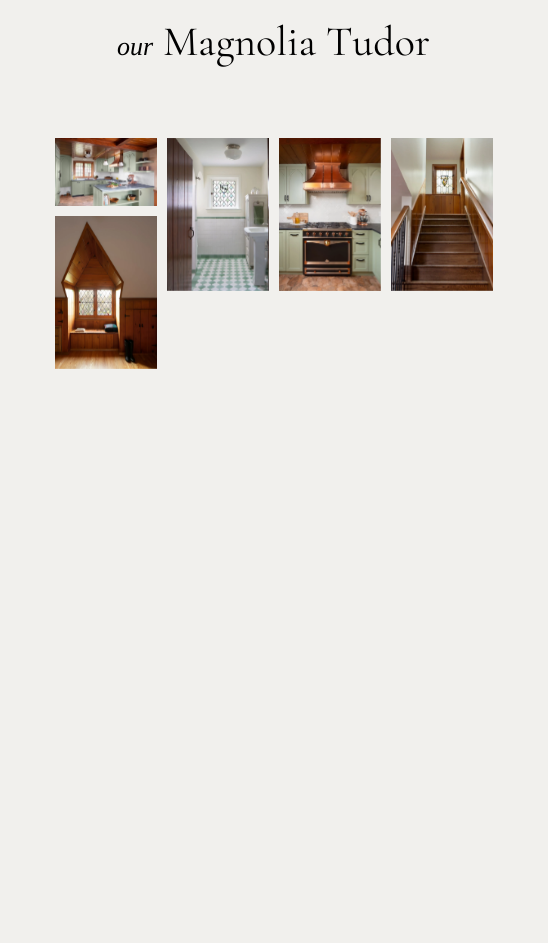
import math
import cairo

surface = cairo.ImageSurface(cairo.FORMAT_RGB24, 548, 943)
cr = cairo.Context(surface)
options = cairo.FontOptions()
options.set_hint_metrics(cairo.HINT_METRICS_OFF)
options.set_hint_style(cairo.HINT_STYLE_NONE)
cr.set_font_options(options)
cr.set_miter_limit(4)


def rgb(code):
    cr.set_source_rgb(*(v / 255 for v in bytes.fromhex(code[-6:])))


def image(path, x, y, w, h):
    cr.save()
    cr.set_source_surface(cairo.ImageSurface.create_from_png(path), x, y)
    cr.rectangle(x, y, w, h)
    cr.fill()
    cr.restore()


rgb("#f1f0ed")
cr.paint()
image("img/1.png", 55, 138, 102, 68)
image("img/2.png", 167, 138, 102, 153)
image("img/3.png", 279, 138, 102, 153)
image("img/4.png", 391, 138, 102, 153)
image("img/5.png", 55, 216, 102, 153)
cr.select_font_face("Liberation Serif", cairo.FONT_SLANT_ITALIC)
cr.set_font_size(26)
rgb("#000000")
cr.move_to(117, 55)
cr.show_text("our")
cr.select_font_face("Cormorant Garamond Light")
cr.set_font_size(42)
cr.move_to(163, 55)
cr.show_text("Magnolia Tudor")
surface.write_to_png("page.png")
